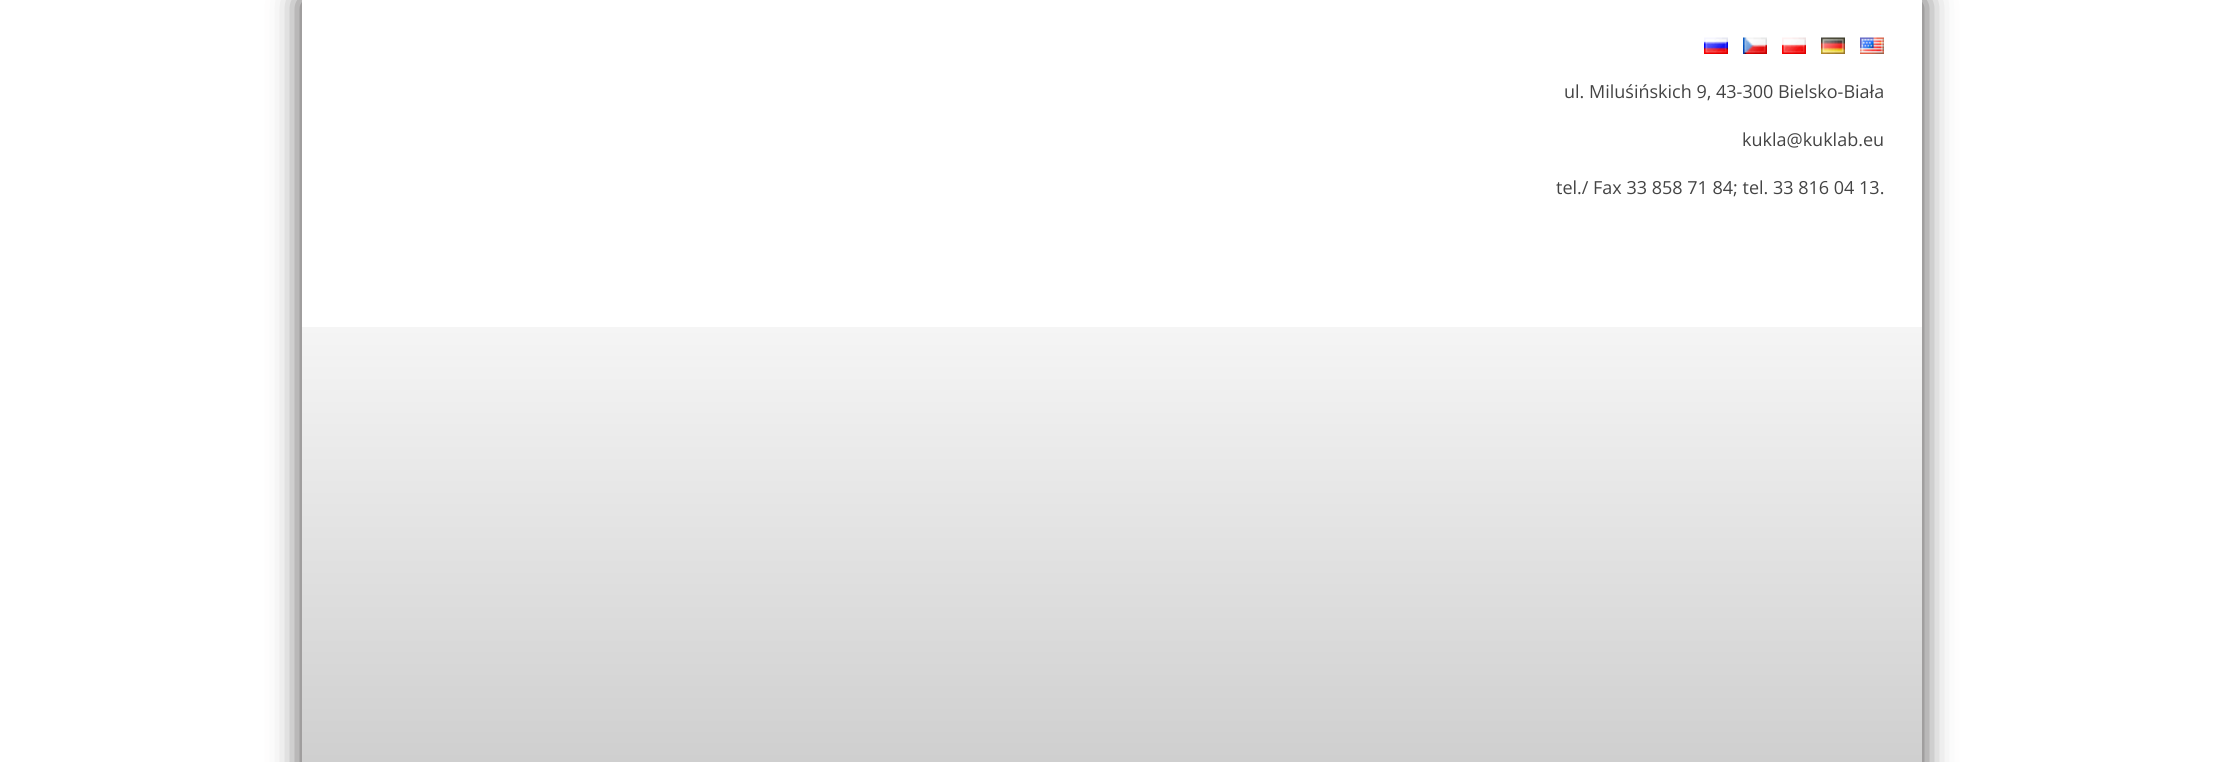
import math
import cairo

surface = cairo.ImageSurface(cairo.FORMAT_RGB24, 2223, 762)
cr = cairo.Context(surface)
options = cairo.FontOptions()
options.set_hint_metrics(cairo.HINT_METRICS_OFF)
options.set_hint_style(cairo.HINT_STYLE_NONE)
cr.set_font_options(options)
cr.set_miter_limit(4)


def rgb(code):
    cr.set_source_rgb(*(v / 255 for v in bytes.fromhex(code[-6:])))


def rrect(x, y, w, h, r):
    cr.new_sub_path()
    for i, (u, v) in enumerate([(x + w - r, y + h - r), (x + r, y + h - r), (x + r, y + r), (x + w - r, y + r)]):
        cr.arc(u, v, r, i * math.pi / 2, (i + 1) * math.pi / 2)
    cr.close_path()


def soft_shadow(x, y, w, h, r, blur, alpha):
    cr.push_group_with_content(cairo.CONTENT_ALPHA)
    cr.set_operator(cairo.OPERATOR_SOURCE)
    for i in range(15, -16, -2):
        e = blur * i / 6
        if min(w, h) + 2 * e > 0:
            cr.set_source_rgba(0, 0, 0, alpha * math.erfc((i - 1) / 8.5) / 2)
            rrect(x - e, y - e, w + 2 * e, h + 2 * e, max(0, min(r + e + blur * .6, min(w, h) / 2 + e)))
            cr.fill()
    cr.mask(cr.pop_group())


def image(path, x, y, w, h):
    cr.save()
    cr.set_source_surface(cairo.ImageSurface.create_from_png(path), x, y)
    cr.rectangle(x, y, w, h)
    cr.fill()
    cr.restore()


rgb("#ffffff")
cr.paint()
cr.save()
cr.set_fill_rule(cairo.FILL_RULE_EVEN_ODD)
cr.new_path()
cr.move_to(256, 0)
cr.line_to(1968, 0)
cr.line_to(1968, 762)
cr.line_to(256, 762)
cr.close_path()
cr.move_to(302, 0)
cr.line_to(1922, 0)
cr.line_to(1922, 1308)
cr.line_to(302, 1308)
cr.close_path()
cr.clip()
rgb("#413e3e")
soft_shadow(302, 0, 1620, 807, 0, 15, 1)
cr.restore()
rgb("#ffffff")
cr.rectangle(1921, 0, 1, 263)
cr.fill()
image("img/1.png", 1704, 37, 24, 17)
image("img/2.png", 1743, 37, 24, 17)
image("img/3.png", 1782, 37, 24, 17)
image("img/4.png", 1821, 37, 24, 17)
image("img/5.png", 1860, 37, 24, 17)
gradient = cairo.LinearGradient(1112, 327, 1112, 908)
gradient.add_color_stop_rgba(0, 0.961, 0.961, 0.961, 1)
gradient.add_color_stop_rgba(1, 0.761, 0.761, 0.761, 1)
cr.set_source(gradient)
cr.rectangle(302, 327, 1620, 435)
cr.fill()
cr.select_font_face("Open Sans")
cr.set_font_size(18)
rgb("#444444")
for x, y, s in [
    (1564, 98, "ul. Miluśińskich 9, 43-300 Bielsko-Biała"),
    (1742, 146, "kukla@kuklab.eu"),
    (1556, 194, "tel./ Fax 33 858 71 84; tel. 33 816 04 13."),
]:
    cr.move_to(x, y)
    cr.show_text(s)
surface.write_to_png("page.png")
